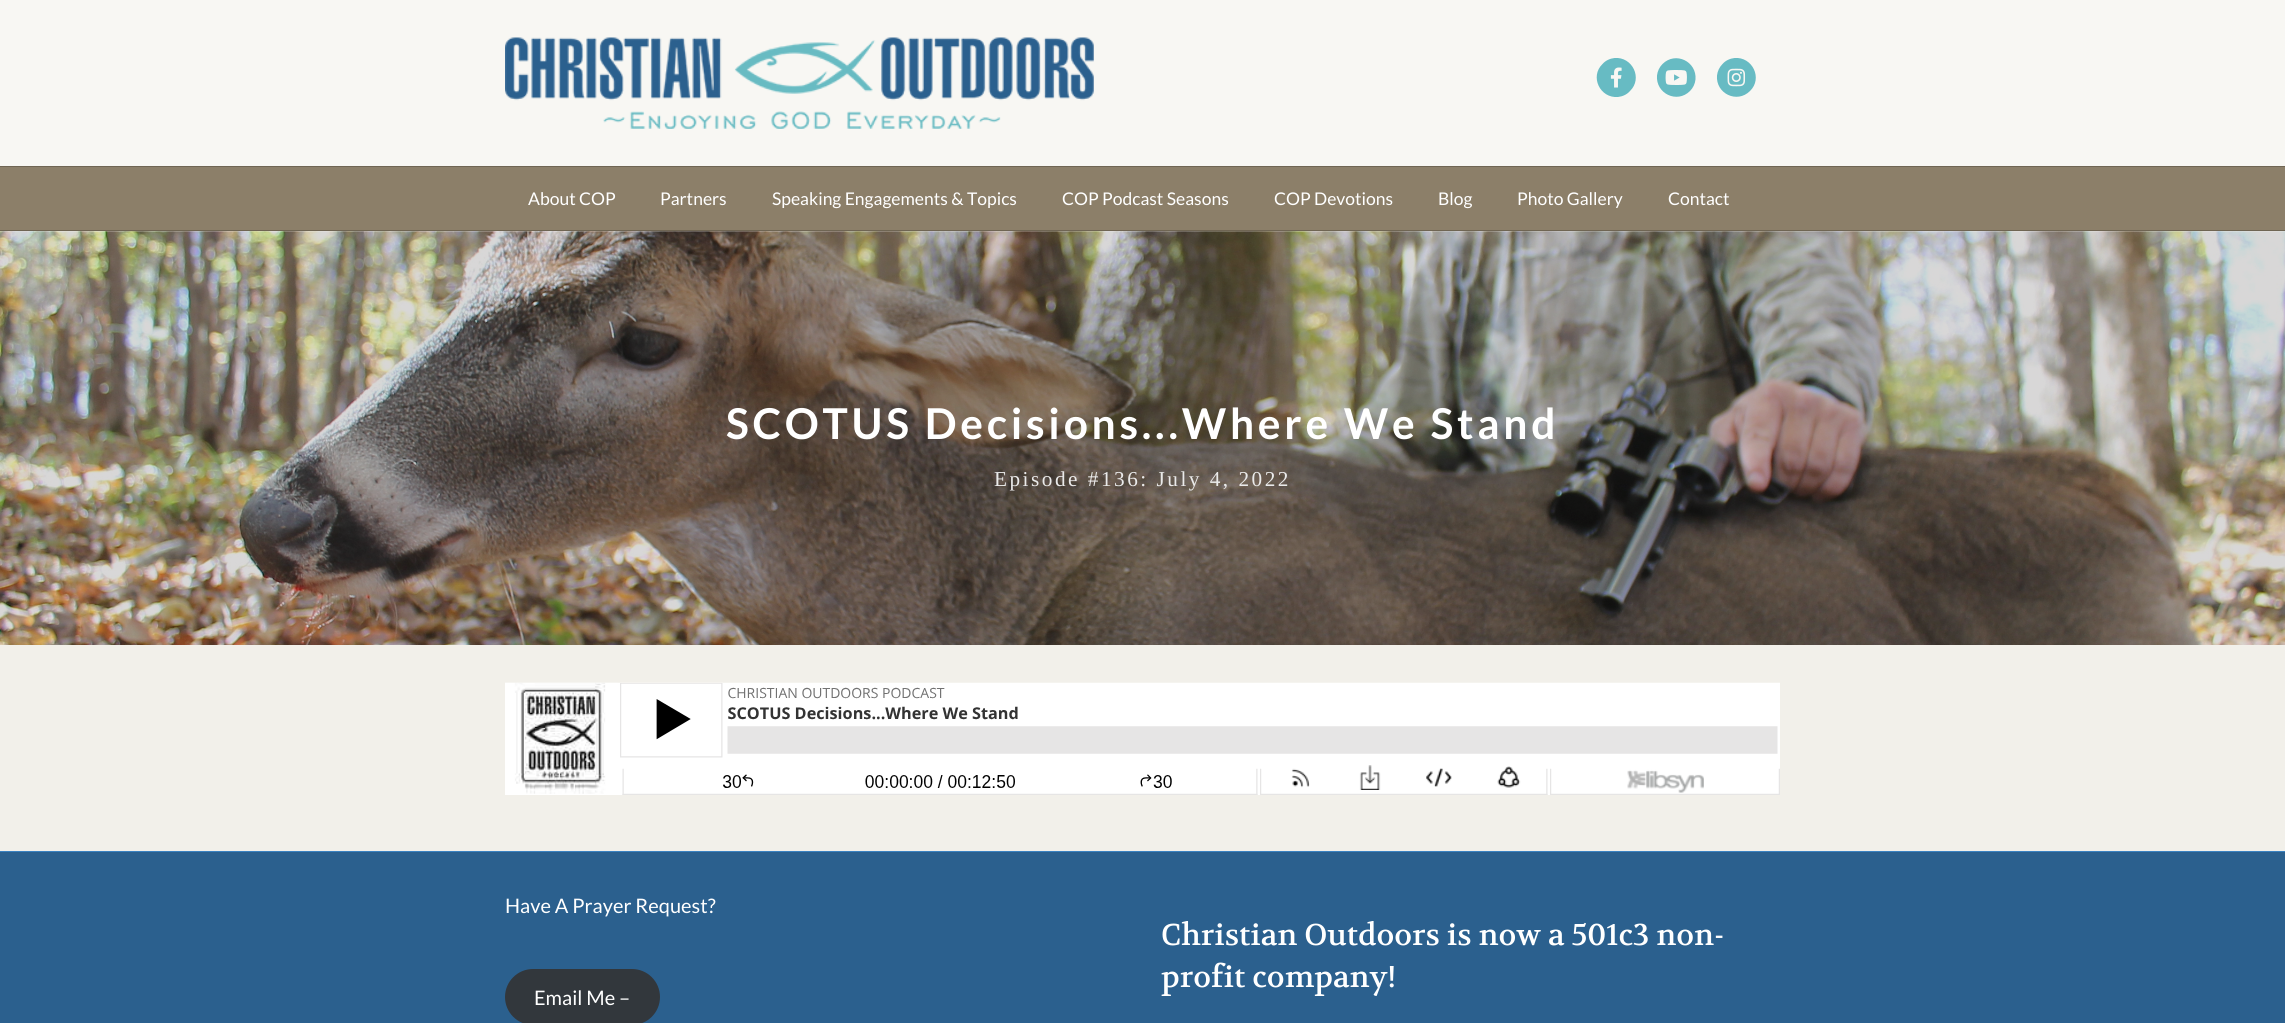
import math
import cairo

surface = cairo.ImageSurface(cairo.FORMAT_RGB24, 2285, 1023)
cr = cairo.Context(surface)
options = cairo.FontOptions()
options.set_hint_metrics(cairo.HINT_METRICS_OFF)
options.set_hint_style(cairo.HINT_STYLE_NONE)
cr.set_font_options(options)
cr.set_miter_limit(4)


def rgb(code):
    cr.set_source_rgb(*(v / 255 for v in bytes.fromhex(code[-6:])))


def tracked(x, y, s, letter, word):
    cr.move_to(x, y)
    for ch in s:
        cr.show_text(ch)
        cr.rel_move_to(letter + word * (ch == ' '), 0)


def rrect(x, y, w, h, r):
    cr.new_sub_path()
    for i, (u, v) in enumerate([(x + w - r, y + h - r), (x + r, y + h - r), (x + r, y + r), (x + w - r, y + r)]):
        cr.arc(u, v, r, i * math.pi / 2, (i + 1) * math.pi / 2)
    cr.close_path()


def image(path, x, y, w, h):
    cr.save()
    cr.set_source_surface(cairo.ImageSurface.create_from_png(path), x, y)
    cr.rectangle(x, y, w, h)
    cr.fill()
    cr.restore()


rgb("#f2f0ea")
cr.paint()
rgb("#f8f7f3")
cr.rectangle(0, 0, 2285, 166)
cr.fill()
image("img/1.png", 505, 37, 589, 92)
rgb("#67bbc3")
cr.new_path()
cr.move_to(1602.5, 64)
cr.curve_to(1605.5, 60.5, 1610, 58.5, 1614.5, 58)
cr.curve_to(1632.5, 56.5, 1643, 78.5, 1630, 91)
cr.curve_to(1627, 94.5, 1622.5, 96.5, 1618, 97)
cr.curve_to(1600, 98.5, 1589.5, 76.5, 1602.5, 64)
cr.close_path()
cr.fill()
image("img/2.png", 1610, 67, 12, 21)
cr.new_path()
cr.move_to(1662.5, 64)
cr.curve_to(1675.5, 51, 1697, 61.5, 1695.5, 79.5)
cr.curve_to(1695, 84, 1693, 88, 1690, 91)
cr.curve_to(1677, 104, 1655.5, 93.5, 1657, 75.5)
cr.curve_to(1657.5, 71, 1659.5, 67, 1662.5, 64)
cr.close_path()
cr.fill()
image("img/3.png", 1665, 70, 22, 15)
cr.new_path()
cr.move_to(1722.5, 64)
cr.curve_to(1725.5, 60.5, 1730, 58.5, 1734.5, 58)
cr.curve_to(1752.5, 56.5, 1763, 78.5, 1750, 91)
cr.curve_to(1737, 104, 1715.5, 93.5, 1717, 75.5)
cr.curve_to(1717.5, 71, 1719.5, 67, 1722.5, 64)
cr.close_path()
cr.fill()
image("img/4.png", 1727, 68, 19, 19)
for x, y, w, h, color in [
    (0, 167, 2285, 63, "#8c7f69"),
    (0, 166, 2285, 1, "#6f6553"),
    (0, 230, 2285, 1, "#6f6553"),
]:
    rgb(color)
    cr.rectangle(x, y, w, h)
    cr.fill()
image("img/5.png", 0, 231, 2285, 414)
image("img/6.png", 505, 682, 1275, 113)
rgb("#2b608e")
cr.rectangle(0, 852, 2285, 171)
cr.fill()
rgb("#3a82c1")
cr.rectangle(0, 851, 2285, 1)
cr.fill()
rgb("#32373c")
rrect(505, 969, 155, 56, 28)
cr.fill()
cr.select_font_face("Lato")
cr.set_font_size(17.5)
rgb("#ffffff")
for x, y, s in [
    (528, 205, "About COP"),
    (660, 205, "Partners"),
    (772, 205, "Speaking Engagements & Topics"),
    (1062, 205, "COP Podcast Seasons"),
    (1274, 205, "COP Devotions"),
    (1438, 205, "Blog"),
    (1517, 205, "Photo Gallery"),
    (1668, 205, "Contact"),
]:
    cr.move_to(x, y)
    cr.show_text(s)
cr.select_font_face("Lato", cairo.FONT_SLANT_NORMAL, cairo.FONT_WEIGHT_BOLD)
cr.set_font_size(42.5)
tracked(726, 439, "SCOTUS Decisions...Where We Stand", 3.75, 0)
cr.select_font_face("Liberation Serif")
cr.set_font_size(21.25)
rgb("#eaeaea")
tracked(994, 486, "Episode #136: July 4, 2022", 2.5, 0)
cr.select_font_face("Lato")
cr.set_font_size(20)
rgb("#ffffff")
cr.move_to(505, 913)
cr.show_text("Have A Prayer Request?")
cr.move_to(534, 1005)
cr.show_text("Email Me –")
cr.select_font_face("Volkhov")
cr.set_font_size(30)
cr.move_to(1161, 945)
cr.show_text("Christian Outdoors is now a 501c3 non-")
cr.move_to(1161, 987)
cr.show_text("profit company!")
surface.write_to_png("page.png")
